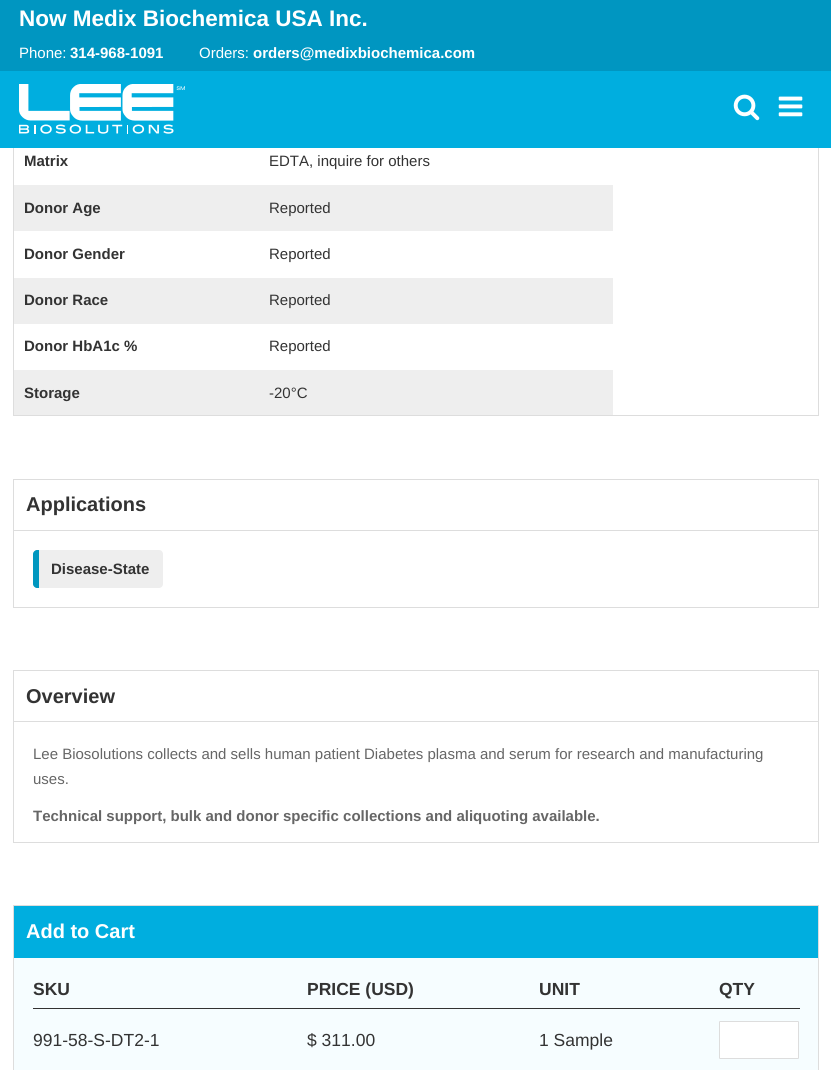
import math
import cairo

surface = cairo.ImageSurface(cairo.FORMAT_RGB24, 831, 1070)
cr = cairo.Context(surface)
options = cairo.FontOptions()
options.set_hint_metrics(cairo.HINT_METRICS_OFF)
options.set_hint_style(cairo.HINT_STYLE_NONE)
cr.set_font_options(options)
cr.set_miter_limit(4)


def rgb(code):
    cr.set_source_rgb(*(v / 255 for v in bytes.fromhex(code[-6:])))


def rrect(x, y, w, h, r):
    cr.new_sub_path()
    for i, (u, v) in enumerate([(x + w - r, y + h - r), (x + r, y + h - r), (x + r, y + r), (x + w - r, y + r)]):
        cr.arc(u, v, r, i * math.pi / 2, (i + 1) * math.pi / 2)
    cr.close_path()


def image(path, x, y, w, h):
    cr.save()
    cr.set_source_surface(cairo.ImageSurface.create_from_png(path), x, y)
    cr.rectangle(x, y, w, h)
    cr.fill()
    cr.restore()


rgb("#ffffff")
cr.paint()
cr.rectangle(13.5, -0.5, 805, 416)
rgb("#dddddd")
cr.set_line_width(1)
cr.stroke()
rgb("#0096c1")
cr.rectangle(0, 0, 831, 71)
cr.fill()
rgb("#00aedf")
cr.rectangle(0, 71, 831, 77)
cr.fill()
image("img/1.png", 19, 84, 166, 50)
image("img/2.png", 733, 94, 27, 27)
image("img/3.png", 778, 96, 25, 21)
for x, y, w, h, color in [
    (14, 185, 599, 46, "#eeeeee"),
    (14, 278, 599, 46, "#eeeeee"),
    (14, 370, 599, 45, "#eeeeee"),
]:
    rgb(color)
    cr.rectangle(x, y, w, h)
    cr.fill()
cr.rectangle(13.5, 479.5, 805, 128)
rgb("#dddddd")
cr.stroke()
cr.rectangle(14, 530, 804, 1)
cr.fill()
rgb("#eeeeee")
rrect(33, 550, 130, 38, 4)
cr.fill()
rgb("#0097bf")
cr.new_path()
cr.move_to(37, 550)
cr.line_to(39, 550)
cr.line_to(39, 588)
cr.line_to(37, 588)
cr.curve_to(35, 588, 33, 586, 33, 584)
cr.line_to(33, 554)
cr.curve_to(33, 552, 35, 550, 37, 550)
cr.close_path()
cr.fill()
cr.rectangle(13.5, 670.5, 805, 172)
rgb("#dddddd")
cr.stroke()
cr.rectangle(14, 721, 804, 1)
cr.fill()
cr.rectangle(13.5, 905.5, 805, 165)
cr.stroke()
for x, y, w, h, color in [
    (14, 906, 804, 52, "#00aedf"),
    (14, 958, 804, 112, "#f6fdff"),
    (33, 1008, 767, 1, "#323232"),
]:
    rgb(color)
    cr.rectangle(x, y, w, h)
    cr.fill()
rgb("#ffffff")
rrect(719.5, 1021.5, 79, 37, 0.5)
cr.fill_preserve()
rgb("#dddddd")
cr.stroke()
cr.select_font_face("Liberation Sans", cairo.FONT_SLANT_NORMAL, cairo.FONT_WEIGHT_BOLD)
cr.set_font_size(22.5)
rgb("#ffffff")
cr.move_to(19, 26)
cr.show_text("Now Medix Biochemica USA Inc.")
cr.select_font_face("Liberation Sans")
cr.set_font_size(15)
cr.move_to(19, 58)
cr.show_text("Phone:")
cr.select_font_face("Liberation Sans", cairo.FONT_SLANT_NORMAL, cairo.FONT_WEIGHT_BOLD)
cr.move_to(70, 58)
cr.show_text("314-968-1091")
cr.select_font_face("Liberation Sans")
cr.move_to(199, 58)
cr.show_text("Orders:")
cr.select_font_face("Liberation Sans", cairo.FONT_SLANT_NORMAL, cairo.FONT_WEIGHT_BOLD)
cr.move_to(253, 58)
cr.show_text("orders@medixbiochemica.com")
rgb("#333333")
cr.move_to(24, 166)
cr.show_text("Matrix")
cr.select_font_face("Liberation Sans")
cr.move_to(269, 166)
cr.show_text("EDTA, inquire for others")
cr.select_font_face("Liberation Sans", cairo.FONT_SLANT_NORMAL, cairo.FONT_WEIGHT_BOLD)
cr.move_to(24, 213)
cr.show_text("Donor Age")
cr.select_font_face("Liberation Sans")
cr.move_to(269, 213)
cr.show_text("Reported")
cr.select_font_face("Liberation Sans", cairo.FONT_SLANT_NORMAL, cairo.FONT_WEIGHT_BOLD)
cr.move_to(24, 259)
cr.show_text("Donor Gender")
cr.select_font_face("Liberation Sans")
cr.move_to(269, 259)
cr.show_text("Reported")
cr.select_font_face("Liberation Sans", cairo.FONT_SLANT_NORMAL, cairo.FONT_WEIGHT_BOLD)
cr.move_to(24, 305)
cr.show_text("Donor Race")
cr.select_font_face("Liberation Sans")
cr.move_to(269, 305)
cr.show_text("Reported")
cr.select_font_face("Liberation Sans", cairo.FONT_SLANT_NORMAL, cairo.FONT_WEIGHT_BOLD)
cr.move_to(24, 351)
cr.show_text("Donor HbA1c %")
cr.select_font_face("Liberation Sans")
cr.move_to(269, 351)
cr.show_text("Reported")
cr.select_font_face("Liberation Sans", cairo.FONT_SLANT_NORMAL, cairo.FONT_WEIGHT_BOLD)
cr.move_to(24, 398)
cr.show_text("Storage")
cr.select_font_face("Liberation Sans")
cr.move_to(269, 398)
cr.show_text("-20°C")
cr.select_font_face("Liberation Sans", cairo.FONT_SLANT_NORMAL, cairo.FONT_WEIGHT_BOLD)
cr.set_font_size(20)
cr.move_to(26, 511)
cr.show_text("Applications")
cr.set_font_size(15)
cr.move_to(51, 574)
cr.show_text("Disease-State")
cr.set_font_size(20)
cr.move_to(26, 703)
cr.show_text("Overview")
cr.select_font_face("Liberation Sans")
cr.set_font_size(15)
rgb("#666666")
cr.move_to(33, 759)
cr.show_text("Lee Biosolutions collects and sells human patient Diabetes plasma and serum for research and manufacturing")
cr.move_to(33, 784)
cr.show_text("uses.")
cr.select_font_face("Liberation Sans", cairo.FONT_SLANT_NORMAL, cairo.FONT_WEIGHT_BOLD)
cr.move_to(33, 821)
cr.show_text("Technical support, bulk and donor specific collections and aliquoting available.")
cr.set_font_size(20)
rgb("#ffffff")
cr.move_to(26, 938)
cr.show_text("Add to Cart")
cr.set_font_size(17.5)
rgb("#333333")
for x, y, s in [
    (33, 995, "SKU"),
    (307, 995, "PRICE (USD)"),
    (539, 995, "UNIT"),
    (719, 995, "QTY"),
]:
    cr.move_to(x, y)
    cr.show_text(s)
cr.select_font_face("Liberation Sans")
for x, y, s in [
    (33, 1046, "991-58-S-DT2-1"),
    (307, 1046, "$ 311.00"),
    (539, 1046, "1 Sample"),
]:
    cr.move_to(x, y)
    cr.show_text(s)
surface.write_to_png("page.png")
